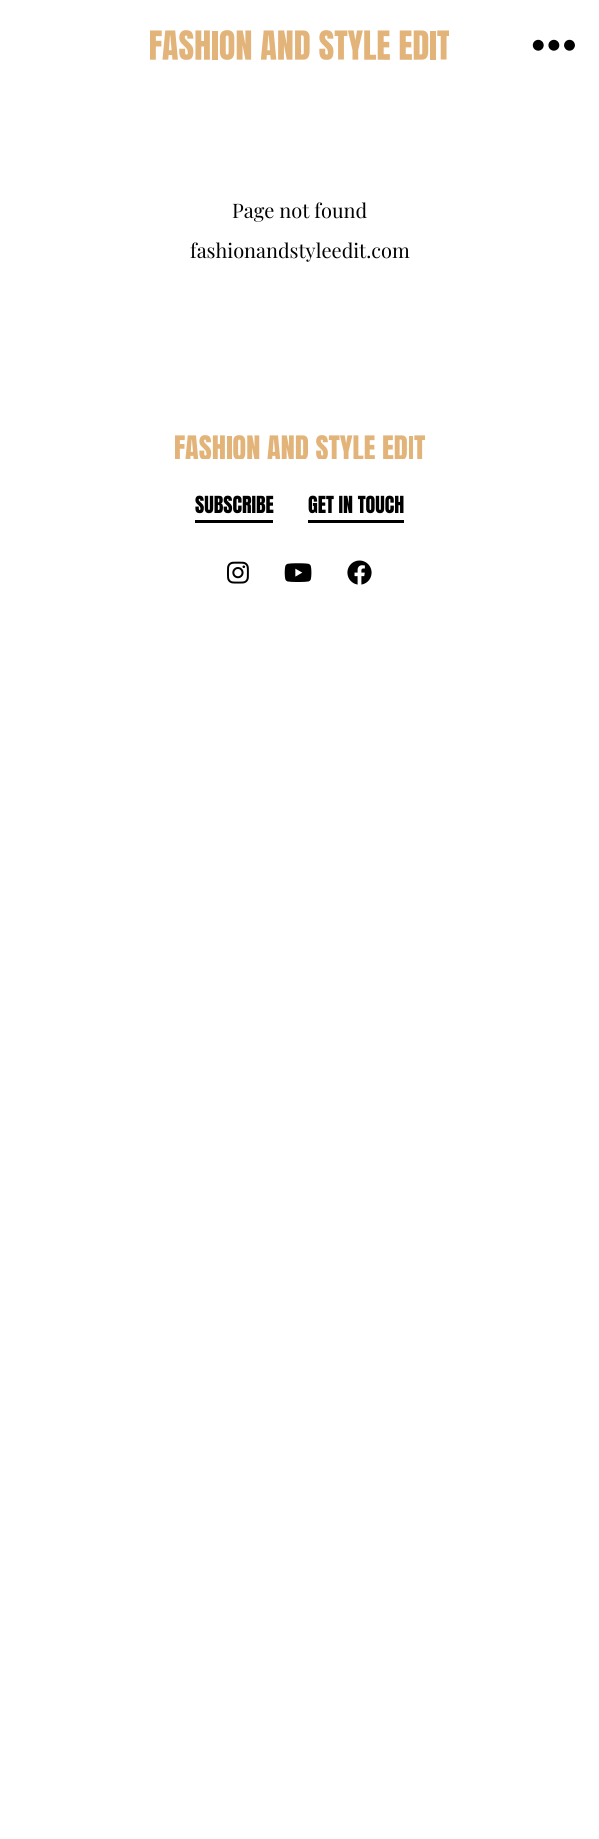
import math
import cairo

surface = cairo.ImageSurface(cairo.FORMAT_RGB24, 599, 1839)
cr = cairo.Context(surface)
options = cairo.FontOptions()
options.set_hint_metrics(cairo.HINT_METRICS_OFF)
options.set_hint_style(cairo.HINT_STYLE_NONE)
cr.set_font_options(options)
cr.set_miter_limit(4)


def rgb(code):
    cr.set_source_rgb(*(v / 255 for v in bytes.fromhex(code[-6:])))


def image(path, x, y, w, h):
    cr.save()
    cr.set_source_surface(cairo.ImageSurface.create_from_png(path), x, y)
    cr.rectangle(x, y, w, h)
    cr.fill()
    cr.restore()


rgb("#ffffff")
cr.paint()
image("img/1.png", 150, 30, 299, 30)
image("img/2.png", 532, 39, 43, 12)
image("img/3.png", 175, 435, 250, 24)
rgb("#000000")
cr.rectangle(195, 520, 78, 3)
cr.fill()
cr.rectangle(308, 520, 96, 3)
cr.fill()
image("img/4.png", 227, 561, 22, 23)
image("img/5.png", 284, 563, 28, 19)
image("img/6.png", 347, 560, 25, 25)
cr.select_font_face("Playfair Display")
cr.set_font_size(20)
cr.move_to(232, 218)
cr.show_text("Page not found")
cr.move_to(190, 258)
cr.show_text("fashionandstyleedit.com")
cr.select_font_face("Anton")
cr.move_to(195, 513)
cr.show_text("SUBSCRIBE")
cr.move_to(308, 513)
cr.show_text("GET IN TOUCH")
surface.write_to_png("page.png")
